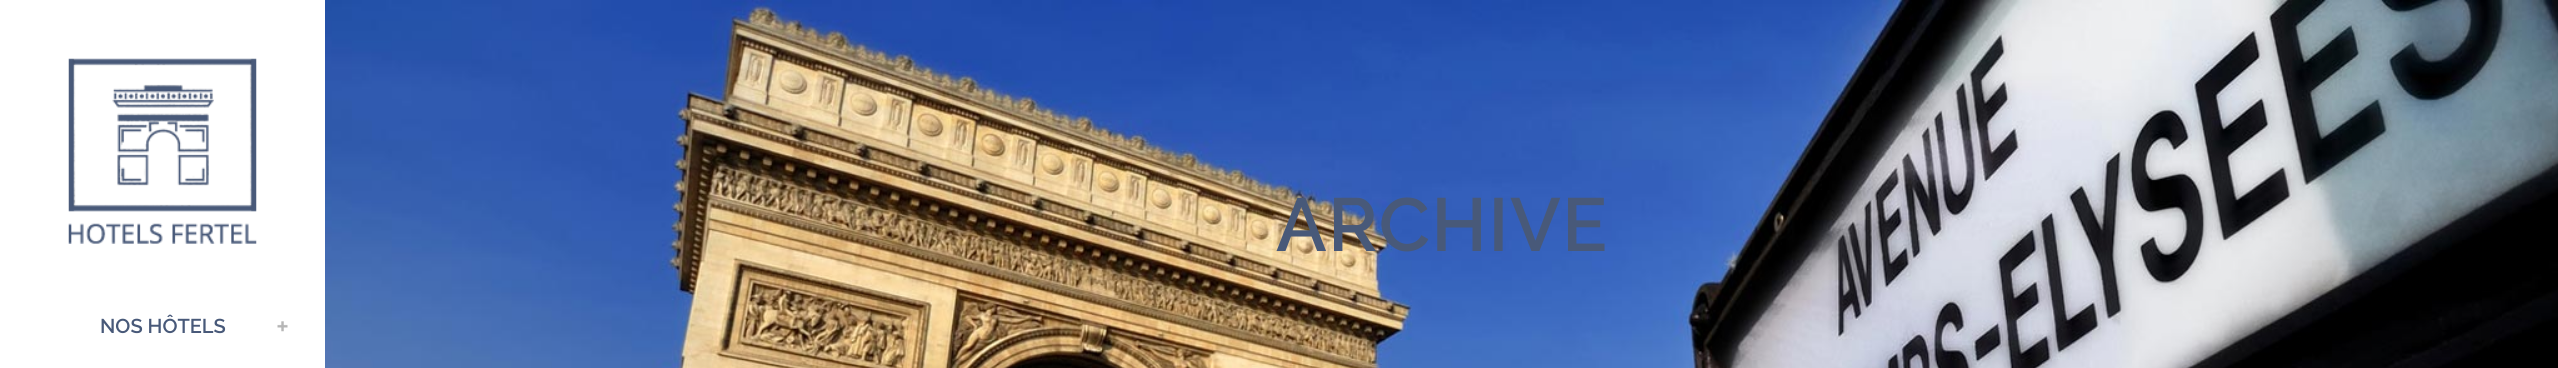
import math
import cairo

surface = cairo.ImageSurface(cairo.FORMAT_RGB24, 2558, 368)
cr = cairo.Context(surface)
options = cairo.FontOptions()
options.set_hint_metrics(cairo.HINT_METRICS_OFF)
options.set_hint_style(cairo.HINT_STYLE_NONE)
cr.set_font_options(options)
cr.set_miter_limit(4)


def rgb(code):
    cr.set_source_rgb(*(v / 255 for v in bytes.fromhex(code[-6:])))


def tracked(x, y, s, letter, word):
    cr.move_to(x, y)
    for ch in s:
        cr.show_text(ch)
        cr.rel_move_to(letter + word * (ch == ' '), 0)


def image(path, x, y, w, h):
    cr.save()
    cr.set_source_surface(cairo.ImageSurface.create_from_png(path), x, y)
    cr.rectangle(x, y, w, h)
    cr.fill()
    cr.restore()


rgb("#ffffff")
cr.paint()
image("img/1.png", 325, 0, 2233, 368)
image("img/2.png", 68, 58, 189, 186)
image("img/3.png", 277, 321, 11, 11)
cr.select_font_face("Raleway SemiBold")
cr.set_font_size(75)
rgb("#485979")
tracked(1276, 251, "ARCHIVE", 1.25, 0)
cr.set_font_size(20)
cr.move_to(100, 333)
cr.show_text("NOS HÔTELS")
surface.write_to_png("page.png")
